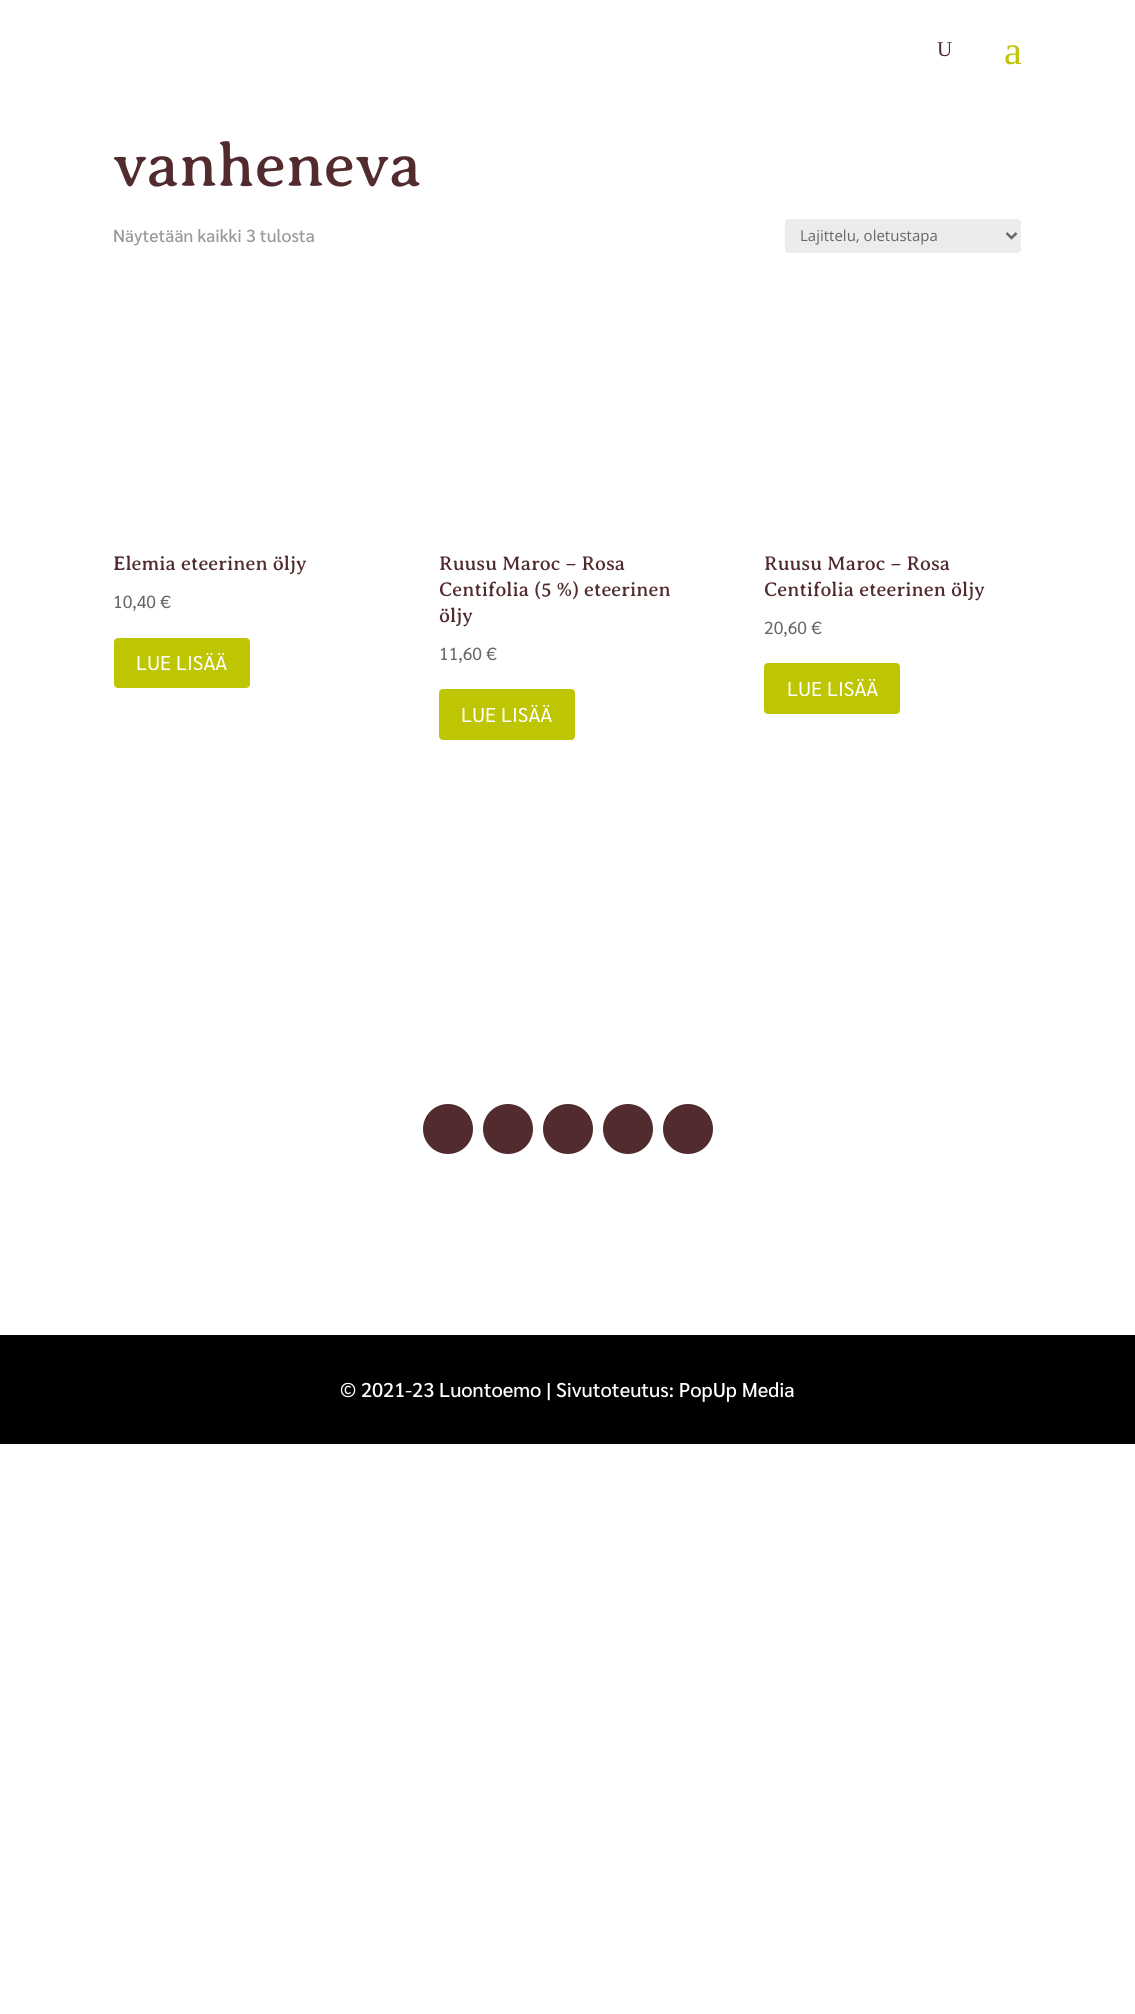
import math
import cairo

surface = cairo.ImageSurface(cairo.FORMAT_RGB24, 1135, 2014)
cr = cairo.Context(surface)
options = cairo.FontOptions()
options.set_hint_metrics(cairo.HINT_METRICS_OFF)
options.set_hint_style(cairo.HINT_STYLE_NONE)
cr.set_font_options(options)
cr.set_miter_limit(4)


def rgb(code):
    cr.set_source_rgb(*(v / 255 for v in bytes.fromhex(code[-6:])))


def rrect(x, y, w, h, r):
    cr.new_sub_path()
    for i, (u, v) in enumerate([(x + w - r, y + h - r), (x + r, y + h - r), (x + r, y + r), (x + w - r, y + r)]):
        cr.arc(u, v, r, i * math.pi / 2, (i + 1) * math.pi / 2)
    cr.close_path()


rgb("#ffffff")
cr.paint()
rgb("#ececec")
rrect(785, 219, 236, 34, 4)
cr.fill()
cr.new_path()
cr.move_to(1006.5, 233)
cr.line_to(1011.5, 238)
cr.line_to(1016.5, 233)
rgb("#666666")
cr.set_line_width(2.5)
cr.stroke()
rgb("#bec502")
rrect(115.5, 639.5, 133, 47, 2.5)
cr.fill_preserve()
cr.set_line_width(3)
cr.stroke()
rrect(440.5, 690.5, 133, 48, 2.5)
cr.fill_preserve()
cr.stroke()
rrect(765.5, 664.5, 133, 48, 2.5)
cr.fill_preserve()
cr.stroke()
rgb("#522b2e")
cr.arc(448, 1129, 25, 0, 2 * math.pi)
cr.fill()
cr.arc(508, 1129, 25, 0, 2 * math.pi)
cr.fill()
cr.arc(568, 1129, 25, 0, 2 * math.pi)
cr.fill()
cr.arc(628, 1129, 25, 0, 2 * math.pi)
cr.fill()
cr.arc(688, 1129, 25, 0, 2 * math.pi)
cr.fill()
rgb("#000000")
cr.rectangle(0, 1335, 1135, 109)
cr.fill()
cr.select_font_face("Liberation Serif")
cr.set_font_size(21)
rgb("#522b2e")
cr.move_to(937, 56)
cr.show_text("U")
cr.set_font_size(40)
rgb("#bec502")
cr.move_to(1004, 64)
cr.show_text("a")
cr.select_font_face("Averia Serif Libre")
cr.set_font_size(62.5)
rgb("#522b2e")
cr.move_to(113, 186)
cr.show_text("vanheneva")
cr.select_font_face("Sarabun Medium")
cr.set_font_size(17.5)
rgb("#999999")
cr.move_to(113, 242)
cr.show_text("Näytetään kaikki 3 tulosta")
cr.select_font_face("Open Sans")
cr.set_font_size(15)
rgb("#666666")
cr.move_to(800, 241)
cr.show_text("Lajittelu, oletustapa")
cr.select_font_face("Averia Serif Libre")
cr.set_font_size(20)
rgb("#522b2e")
cr.move_to(113, 570)
cr.show_text("Elemia eteerinen öljy")
cr.select_font_face("Sarabun")
cr.set_font_size(17.5)
rgb("#666666")
cr.move_to(113, 608)
cr.show_text("10,40 €")
cr.set_font_size(20)
rgb("#ffffff")
cr.move_to(136, 670)
cr.show_text("LUE LISÄÄ")
cr.select_font_face("Averia Serif Libre")
rgb("#522b2e")
for x, y, s in [
    (439, 570, "Ruusu Maroc – Rosa"),
    (439, 596, "Centifolia (5 %) eteerinen"),
    (439, 622, "öljy"),
]:
    cr.move_to(x, y)
    cr.show_text(s)
cr.select_font_face("Sarabun")
cr.set_font_size(17.5)
rgb("#666666")
cr.move_to(439, 660)
cr.show_text("11,60 €")
cr.set_font_size(20)
rgb("#ffffff")
cr.move_to(461, 722)
cr.show_text("LUE LISÄÄ")
cr.select_font_face("Averia Serif Libre")
rgb("#522b2e")
cr.move_to(764, 570)
cr.show_text("Ruusu Maroc – Rosa")
cr.move_to(764, 596)
cr.show_text("Centifolia eteerinen öljy")
cr.select_font_face("Sarabun")
cr.set_font_size(17.5)
rgb("#666666")
cr.move_to(764, 634)
cr.show_text("20,60 €")
cr.set_font_size(20)
rgb("#ffffff")
cr.move_to(787, 696)
cr.show_text("LUE LISÄÄ")
cr.select_font_face("Sarabun Medium")
cr.move_to(340, 1397)
cr.show_text("© 2021-23 Luontoemo | Sivutoteutus: PopUp Media")
surface.write_to_png("page.png")
